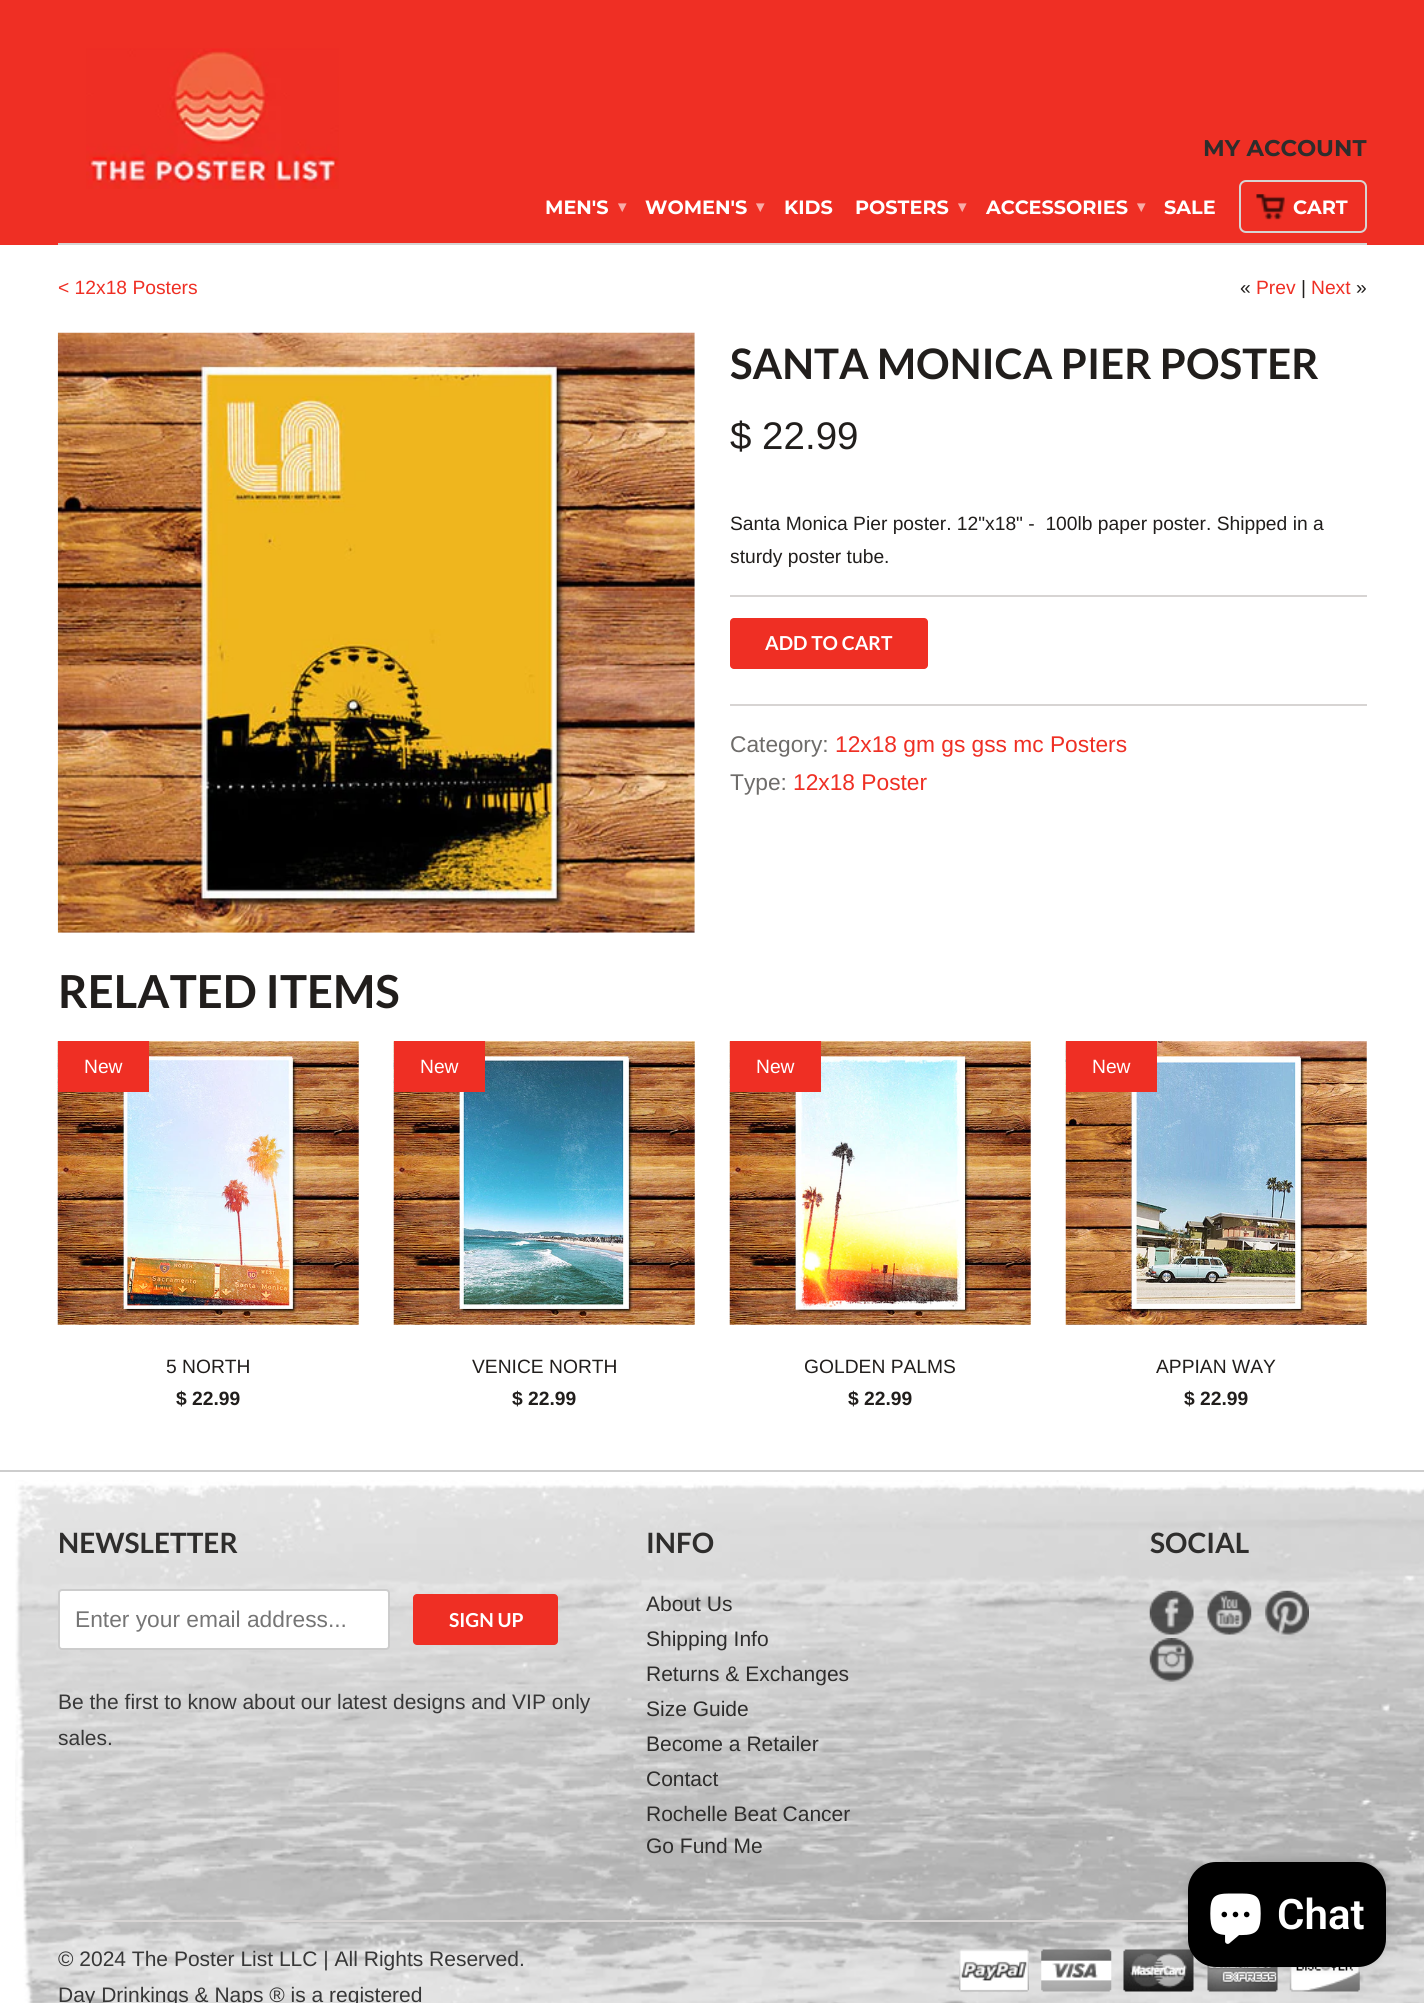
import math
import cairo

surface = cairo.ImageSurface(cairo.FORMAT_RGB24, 1424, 2003)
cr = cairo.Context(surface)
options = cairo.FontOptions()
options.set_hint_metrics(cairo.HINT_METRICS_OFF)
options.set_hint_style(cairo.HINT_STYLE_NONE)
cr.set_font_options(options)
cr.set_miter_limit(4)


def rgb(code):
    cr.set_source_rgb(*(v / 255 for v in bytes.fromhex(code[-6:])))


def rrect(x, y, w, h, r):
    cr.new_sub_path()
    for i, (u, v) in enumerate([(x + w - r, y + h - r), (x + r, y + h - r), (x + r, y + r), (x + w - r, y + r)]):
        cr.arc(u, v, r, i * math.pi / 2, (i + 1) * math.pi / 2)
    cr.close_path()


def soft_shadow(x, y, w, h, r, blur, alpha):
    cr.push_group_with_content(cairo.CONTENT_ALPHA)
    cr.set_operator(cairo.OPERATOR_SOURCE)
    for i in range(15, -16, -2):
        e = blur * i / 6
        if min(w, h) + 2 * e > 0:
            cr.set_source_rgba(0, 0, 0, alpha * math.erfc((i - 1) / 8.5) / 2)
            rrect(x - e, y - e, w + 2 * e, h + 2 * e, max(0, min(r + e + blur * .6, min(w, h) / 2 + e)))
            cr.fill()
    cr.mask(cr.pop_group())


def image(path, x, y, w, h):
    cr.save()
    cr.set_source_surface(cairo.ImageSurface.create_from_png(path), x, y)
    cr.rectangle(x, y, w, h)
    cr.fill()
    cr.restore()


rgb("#ffffff")
cr.paint()
rgb("#ef2f24")
cr.rectangle(0, 0, 1424, 245)
cr.fill()
rgb("#d7d4d3")
cr.rectangle(58, 243, 1309, 2)
cr.fill()
image("img/1.png", 86, 48, 253, 141)
image("img/2.png", 1256, 194, 29, 26)
rrect(1240, 181, 126, 51, 6)
cr.stroke()
image("img/3.png", 57, 332, 638, 601)
cr.rectangle(730, 595, 637, 2)
cr.fill()
rgb("#ef2f24")
rrect(730, 618, 198, 51, 4)
cr.fill()
rgb("#d7d4d3")
cr.rectangle(730, 704, 637, 2)
cr.fill()
image("img/4.png", 57, 1041, 302, 284)
rgb("#ef2f24")
cr.rectangle(58, 1041, 91, 51)
cr.fill()
image("img/5.png", 393, 1041, 302, 284)
cr.rectangle(394, 1041, 91, 51)
cr.fill()
image("img/6.png", 729, 1041, 302, 284)
cr.rectangle(730, 1041, 91, 51)
cr.fill()
image("img/7.png", 1065, 1041, 302, 284)
cr.rectangle(1066, 1041, 91, 51)
cr.fill()
image("img/8.png", 15, 1480, 1409, 523)
rgb("#cdcdcd")
cr.rectangle(0, 1470, 1424, 2)
cr.fill()
rgb("#ffffff")
rrect(59, 1590, 330, 59, 3)
cr.fill_preserve()
rgb("#cccccc")
cr.stroke()
rgb("#ef2f24")
rrect(413, 1594, 145, 51, 4)
cr.fill()
image("img/9.png", 1149, 1590, 45, 45)
image("img/10.png", 1207, 1590, 45, 45)
image("img/11.png", 1265, 1590, 44, 45)
image("img/12.png", 1149, 1638, 45, 44)
rgb("#d7d4d3")
cr.rectangle(58, 1920, 1130, 2)
cr.fill()
image("img/13.png", 959, 1949, 70, 43)
image("img/14.png", 1041, 1949, 71, 43)
image("img/15.png", 1123, 1949, 71, 43)
image("img/16.png", 1207, 1965, 71, 27)
image("img/17.png", 1289, 1966, 71, 26)
rgb("#000000")
soft_shadow(1188, 1862, 198, 105, 28, 4.5, 0.15)
rgb("#000000")
rrect(1188, 1862, 198, 105, 28)
cr.fill()
image("img/18.png", 1210, 1893, 51, 51)
cr.select_font_face("Montserrat", cairo.FONT_SLANT_NORMAL, cairo.FONT_WEIGHT_BOLD)
cr.set_font_size(22.75)
rgb("#2e2d2c")
cr.move_to(1203, 156)
cr.show_text("MY ACCOUNT")
cr.set_font_size(19.25)
rgb("#ffffff")
cr.move_to(545, 214)
cr.show_text("MEN'S")
cr.select_font_face("DejaVu Sans", cairo.FONT_SLANT_NORMAL, cairo.FONT_WEIGHT_BOLD)
cr.set_font_size(16)
rgb("#f9aca7")
cr.move_to(618, 212)
cr.show_text("▾")
cr.select_font_face("Montserrat", cairo.FONT_SLANT_NORMAL, cairo.FONT_WEIGHT_BOLD)
cr.set_font_size(19.25)
rgb("#ffffff")
cr.move_to(645, 214)
cr.show_text("WOMEN'S")
cr.select_font_face("DejaVu Sans", cairo.FONT_SLANT_NORMAL, cairo.FONT_WEIGHT_BOLD)
cr.set_font_size(16)
rgb("#f9aca7")
cr.move_to(756, 212)
cr.show_text("▾")
cr.select_font_face("Montserrat", cairo.FONT_SLANT_NORMAL, cairo.FONT_WEIGHT_BOLD)
cr.set_font_size(19.25)
rgb("#ffffff")
cr.move_to(784, 214)
cr.show_text("KIDS")
cr.move_to(855, 214)
cr.show_text("POSTERS")
cr.select_font_face("DejaVu Sans", cairo.FONT_SLANT_NORMAL, cairo.FONT_WEIGHT_BOLD)
cr.set_font_size(16)
rgb("#f9aca7")
cr.move_to(958, 212)
cr.show_text("▾")
cr.select_font_face("Montserrat", cairo.FONT_SLANT_NORMAL, cairo.FONT_WEIGHT_BOLD)
cr.set_font_size(19.25)
rgb("#ffffff")
cr.move_to(986, 214)
cr.show_text("ACCESSORIES")
cr.select_font_face("DejaVu Sans", cairo.FONT_SLANT_NORMAL, cairo.FONT_WEIGHT_BOLD)
cr.set_font_size(16)
rgb("#f9aca7")
cr.move_to(1137, 212)
cr.show_text("▾")
cr.select_font_face("Montserrat", cairo.FONT_SLANT_NORMAL, cairo.FONT_WEIGHT_BOLD)
cr.set_font_size(19.25)
rgb("#ffffff")
cr.move_to(1164, 214)
cr.show_text("SALE")
cr.move_to(1293, 214)
cr.show_text("CART")
cr.select_font_face("Liberation Sans")
rgb("#ef2f24")
cr.move_to(58, 294)
cr.show_text("< 12x18 Posters")
rgb("#211e1c")
cr.move_to(1240, 294)
cr.show_text("«")
rgb("#ef2f24")
cr.move_to(1256, 294)
cr.show_text("Prev")
rgb("#211e1c")
cr.move_to(1301, 294)
cr.show_text("|")
rgb("#ef2f24")
cr.move_to(1311, 294)
cr.show_text("Next")
rgb("#211e1c")
cr.move_to(1356, 294)
cr.show_text("»")
cr.select_font_face("Lato", cairo.FONT_SLANT_NORMAL, cairo.FONT_WEIGHT_BOLD)
cr.set_font_size(42)
cr.move_to(730, 379)
cr.show_text("SANTA MONICA PIER POSTER")
cr.select_font_face("Liberation Sans")
cr.set_font_size(38.5)
cr.move_to(730, 449)
cr.show_text("$ 22.99")
cr.set_font_size(19.25)
cr.move_to(730, 530)
cr.show_text("Santa Monica Pier poster. 12\"x18\" -  100lb paper poster. Shipped in a")
cr.move_to(730, 563)
cr.show_text("sturdy poster tube.")
cr.select_font_face("Lato", cairo.FONT_SLANT_NORMAL, cairo.FONT_WEIGHT_BOLD)
rgb("#ffffff")
cr.move_to(765, 650)
cr.show_text("ADD TO CART")
cr.select_font_face("Liberation Sans")
cr.set_font_size(22.75)
rgb("#6e6c6a")
cr.move_to(730, 752)
cr.show_text("Category:")
rgb("#ef2f24")
cr.move_to(835, 752)
cr.show_text("12x18 gm gs gss mc Posters")
rgb("#6e6c6a")
cr.move_to(730, 790)
cr.show_text("Type:")
rgb("#ef2f24")
cr.move_to(793, 790)
cr.show_text("12x18 Poster")
cr.select_font_face("Lato", cairo.FONT_SLANT_NORMAL, cairo.FONT_WEIGHT_BOLD)
cr.set_font_size(45.5)
rgb("#211e1c")
cr.move_to(58, 1008)
cr.show_text("RELATED ITEMS")
cr.select_font_face("Liberation Sans")
cr.set_font_size(19.25)
rgb("#ffffff")
cr.move_to(84, 1073)
cr.show_text("New")
rgb("#211e1c")
cr.move_to(166, 1373)
cr.show_text("5 NORTH")
cr.select_font_face("Liberation Sans", cairo.FONT_SLANT_NORMAL, cairo.FONT_WEIGHT_BOLD)
cr.move_to(176, 1405)
cr.show_text("$ 22.99")
cr.select_font_face("Liberation Sans")
rgb("#ffffff")
cr.move_to(420, 1073)
cr.show_text("New")
rgb("#211e1c")
cr.move_to(472, 1373)
cr.show_text("VENICE NORTH")
cr.select_font_face("Liberation Sans", cairo.FONT_SLANT_NORMAL, cairo.FONT_WEIGHT_BOLD)
cr.move_to(512, 1405)
cr.show_text("$ 22.99")
cr.select_font_face("Liberation Sans")
rgb("#ffffff")
cr.move_to(756, 1073)
cr.show_text("New")
rgb("#211e1c")
cr.move_to(804, 1373)
cr.show_text("GOLDEN PALMS")
cr.select_font_face("Liberation Sans", cairo.FONT_SLANT_NORMAL, cairo.FONT_WEIGHT_BOLD)
cr.move_to(848, 1405)
cr.show_text("$ 22.99")
cr.select_font_face("Liberation Sans")
rgb("#ffffff")
cr.move_to(1092, 1073)
cr.show_text("New")
rgb("#211e1c")
cr.move_to(1156, 1373)
cr.show_text("APPIAN WAY")
cr.select_font_face("Liberation Sans", cairo.FONT_SLANT_NORMAL, cairo.FONT_WEIGHT_BOLD)
cr.move_to(1184, 1405)
cr.show_text("$ 22.99")
cr.select_font_face("Lato", cairo.FONT_SLANT_NORMAL, cairo.FONT_WEIGHT_BOLD)
cr.set_font_size(28)
rgb("#2e2d2c")
cr.move_to(58, 1553)
cr.show_text("NEWSLETTER")
cr.select_font_face("Liberation Sans")
cr.set_font_size(22.75)
rgb("#757575")
cr.move_to(75, 1627)
cr.show_text("Enter your email address...")
cr.select_font_face("Lato", cairo.FONT_SLANT_NORMAL, cairo.FONT_WEIGHT_BOLD)
cr.set_font_size(19.25)
rgb("#ffffff")
cr.move_to(449, 1627)
cr.show_text("SIGN UP")
cr.select_font_face("Liberation Sans")
cr.set_font_size(21)
rgb("#373737")
cr.move_to(58, 1709)
cr.show_text("Be the first to know about our latest designs and VIP only")
cr.move_to(58, 1745)
cr.show_text("sales.")
cr.select_font_face("Lato", cairo.FONT_SLANT_NORMAL, cairo.FONT_WEIGHT_BOLD)
cr.set_font_size(28)
rgb("#2e2d2c")
cr.move_to(646, 1553)
cr.show_text("INFO")
cr.select_font_face("Liberation Sans")
cr.set_font_size(21)
for x, y, s in [
    (646, 1611, "About Us"),
    (646, 1646, "Shipping Info"),
    (646, 1681, "Returns & Exchanges"),
    (646, 1716, "Size Guide"),
    (646, 1751, "Become a Retailer"),
    (646, 1786, "Contact"),
    (646, 1821, "Rochelle Beat Cancer"),
    (646, 1853, "Go Fund Me"),
]:
    cr.move_to(x, y)
    cr.show_text(s)
cr.select_font_face("Lato", cairo.FONT_SLANT_NORMAL, cairo.FONT_WEIGHT_BOLD)
cr.set_font_size(28)
cr.move_to(1150, 1553)
cr.show_text("SOCIAL")
cr.select_font_face("Liberation Sans")
cr.set_font_size(21)
rgb("#373737")
cr.move_to(58, 1966)
cr.show_text("© 2024 The Poster List LLC | All Rights Reserved.")
cr.move_to(58, 2002)
cr.show_text("Day Drinkings & Naps ® is a registered")
cr.select_font_face("Roboto SemiBold")
cr.set_font_size(42)
rgb("#ffffff")
cr.move_to(1277, 1929)
cr.show_text("Chat")
surface.write_to_png("page.png")
